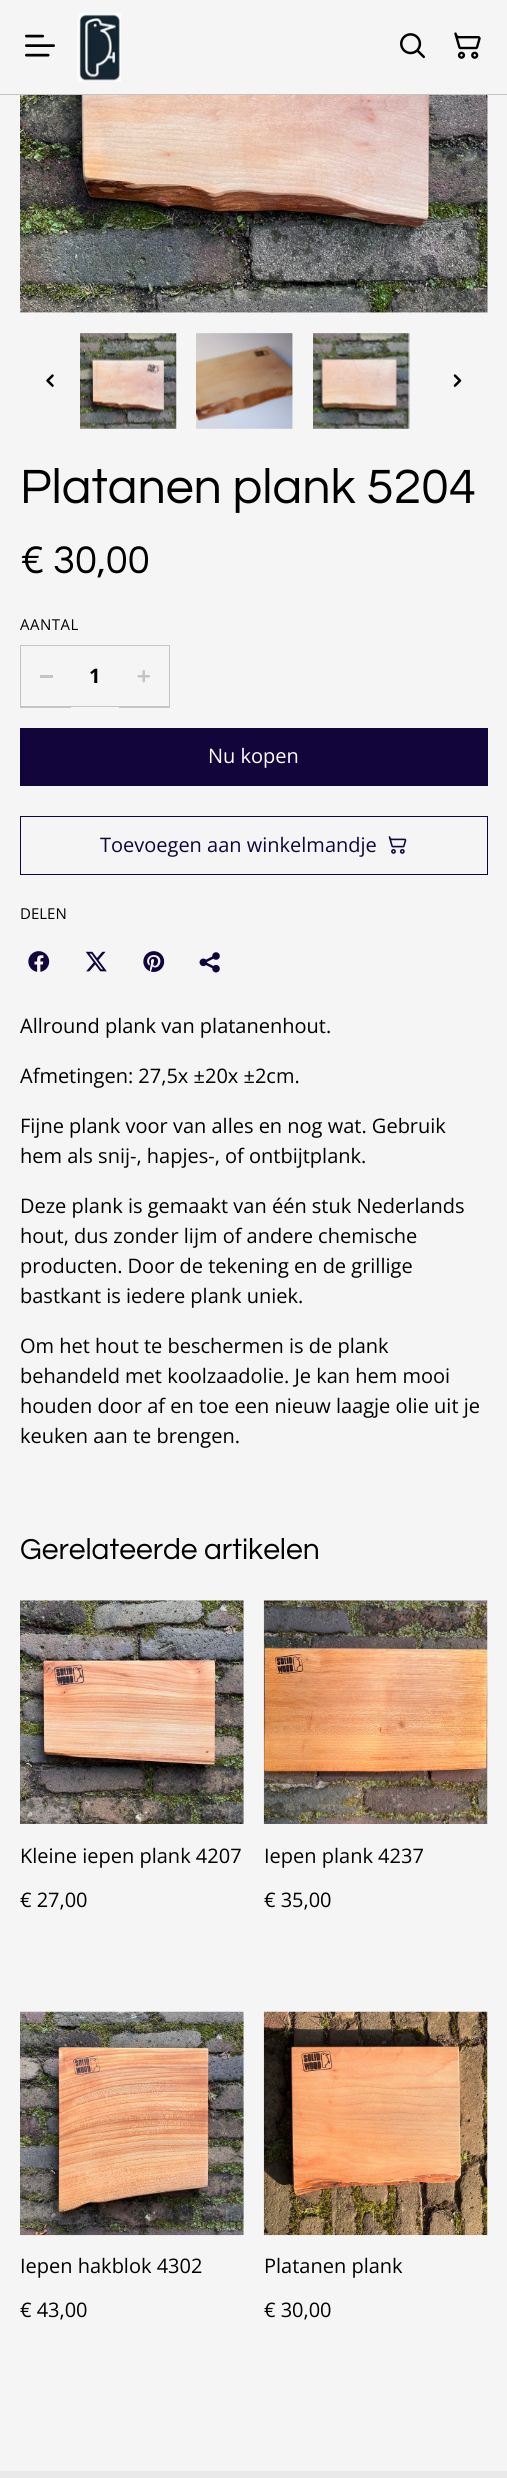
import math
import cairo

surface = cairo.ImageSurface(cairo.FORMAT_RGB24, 507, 2478)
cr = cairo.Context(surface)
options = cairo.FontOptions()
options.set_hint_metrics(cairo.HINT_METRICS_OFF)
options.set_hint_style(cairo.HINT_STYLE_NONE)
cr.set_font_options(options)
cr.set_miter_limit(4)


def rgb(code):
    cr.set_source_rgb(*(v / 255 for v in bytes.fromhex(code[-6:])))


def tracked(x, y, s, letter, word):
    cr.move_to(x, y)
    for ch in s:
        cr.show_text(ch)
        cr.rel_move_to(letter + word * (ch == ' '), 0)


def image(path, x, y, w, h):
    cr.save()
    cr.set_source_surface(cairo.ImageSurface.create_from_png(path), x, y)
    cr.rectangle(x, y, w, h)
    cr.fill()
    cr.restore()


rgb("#f5f5f5")
cr.paint()
rgb("#c4c4c4")
cr.rectangle(0, 94, 507, 1)
cr.fill()
image("img/1.png", 25, 34, 30, 23)
image("img/2.png", 77, 13, 44, 69)
image("img/3.png", 400, 33, 25, 26)
image("img/4.png", 454, 32, 27, 27)
image("img/5.png", 20, 95, 468, 218)
image("img/6.png", 46, 374, 8, 13)
image("img/7.png", 80, 333, 97, 96)
image("img/8.png", 196, 333, 97, 96)
image("img/9.png", 313, 333, 97, 96)
image("img/10.png", 453, 374, 9, 13)
cr.new_path()
cr.move_to(20, 645)
cr.line_to(71, 645)
cr.line_to(71, 646)
cr.line_to(21, 646)
cr.close_path()
cr.move_to(71, 708)
cr.line_to(20, 708)
cr.line_to(21, 706)
cr.line_to(71, 706)
cr.close_path()
cr.fill()
cr.set_source_rgba(0, 0, 0, 0.2)
cr.new_path()
cr.move_to(20, 708)
cr.line_to(20, 645)
cr.line_to(21, 646)
cr.line_to(21, 706)
cr.close_path()
cr.fill()
for x, y, w, h, color in [
    (40, 675, 13, 3, "#c4c4c4"),
    (71, 645, 48, 1, "#c4c4c4"),
    (71, 706, 48, 1, "#c4c4c4"),
]:
    rgb(color)
    cr.rectangle(x, y, w, h)
    cr.fill()
cr.new_path()
cr.move_to(119, 645)
cr.line_to(170, 645)
cr.line_to(169, 646)
cr.line_to(119, 646)
cr.close_path()
cr.fill()
cr.set_source_rgba(0, 0, 0, 0.2)
cr.new_path()
cr.move_to(170, 645)
cr.line_to(170, 708)
cr.line_to(169, 706)
cr.line_to(169, 646)
cr.close_path()
cr.fill()
cr.new_path()
cr.move_to(170, 708)
cr.line_to(119, 708)
cr.line_to(119, 706)
cr.line_to(169, 706)
cr.close_path()
cr.fill()
image("img/11.png", 137, 670, 13, 13)
rgb("#11053b")
cr.rectangle(20, 728, 468, 58)
cr.fill()
cr.rectangle(20.5, 816.5, 467, 58)
cr.set_line_width(1)
cr.stroke()
image("img/12.png", 388, 836, 19, 18)
image("img/13.png", 28, 951, 22, 21)
image("img/14.png", 85, 951, 22, 21)
image("img/15.png", 143, 951, 22, 21)
image("img/16.png", 199, 952, 21, 21)
image("img/17.png", 20, 1600, 224, 224)
image("img/18.png", 263, 1600, 225, 224)
image("img/19.png", 20, 2011, 224, 225)
image("img/20.png", 263, 2011, 225, 225)
rgb("#e9e9e9")
cr.rectangle(0, 2471, 507, 7)
cr.fill()
cr.select_font_face("Questrial")
cr.set_font_size(50)
rgb("#000000")
cr.move_to(20, 503)
cr.show_text("Platanen plank 5204")
cr.set_font_size(40)
cr.move_to(20, 573)
cr.show_text("€ 30,00")
cr.select_font_face("Open Sans")
cr.set_font_size(15)
tracked(20, 630, "AANTAL", 0.5, 0)
cr.select_font_face("Open Sans", cairo.FONT_SLANT_NORMAL, cairo.FONT_WEIGHT_BOLD)
cr.set_font_size(20)
cr.move_to(89, 683)
cr.show_text("1")
cr.select_font_face("Open Sans")
rgb("#ffffff")
cr.move_to(208, 763)
cr.show_text("Nu kopen")
rgb("#11053b")
cr.move_to(100, 852)
cr.show_text("Toevoegen aan winkelmandje")
cr.set_font_size(15)
rgb("#000000")
cr.move_to(20, 919)
cr.show_text("DELEN")
cr.set_font_size(20)
for x, y, s in [
    (20, 1033, "Allround plank van platanenhout."),
    (20, 1083, "Afmetingen: 27,5x ±20x ±2cm."),
    (20, 1133, "Fijne plank voor van alles en nog wat. Gebruik"),
    (20, 1163, "hem als snij-, hapjes-, of ontbijtplank."),
    (20, 1213, "Deze plank is gemaakt van één stuk Nederlands"),
    (20, 1243, "hout, dus zonder lijm of andere chemische"),
    (20, 1273, "producten. Door de tekening en de grillige"),
    (20, 1303, "bastkant is iedere plank uniek."),
    (20, 1353, "Om het hout te beschermen is de plank"),
    (20, 1383, "behandeld met koolzaadolie. Je kan hem mooi"),
    (20, 1413, "houden door af en toe een nieuw laagje olie uit je"),
    (20, 1443, "keuken aan te brengen."),
]:
    cr.move_to(x, y)
    cr.show_text(s)
cr.select_font_face("Questrial")
cr.set_font_size(30)
cr.move_to(20, 1559)
cr.show_text("Gerelateerde artikelen")
cr.select_font_face("Open Sans")
cr.set_font_size(20)
for x, y, s in [
    (20, 1863, "Kleine iepen plank 4207"),
    (20, 1907, "€ 27,00"),
    (264, 1863, "Iepen plank 4237"),
    (264, 1907, "€ 35,00"),
    (20, 2273, "Iepen hakblok 4302"),
    (20, 2317, "€ 43,00"),
    (264, 2273, "Platanen plank"),
    (264, 2317, "€ 30,00"),
]:
    cr.move_to(x, y)
    cr.show_text(s)
surface.write_to_png("page.png")
